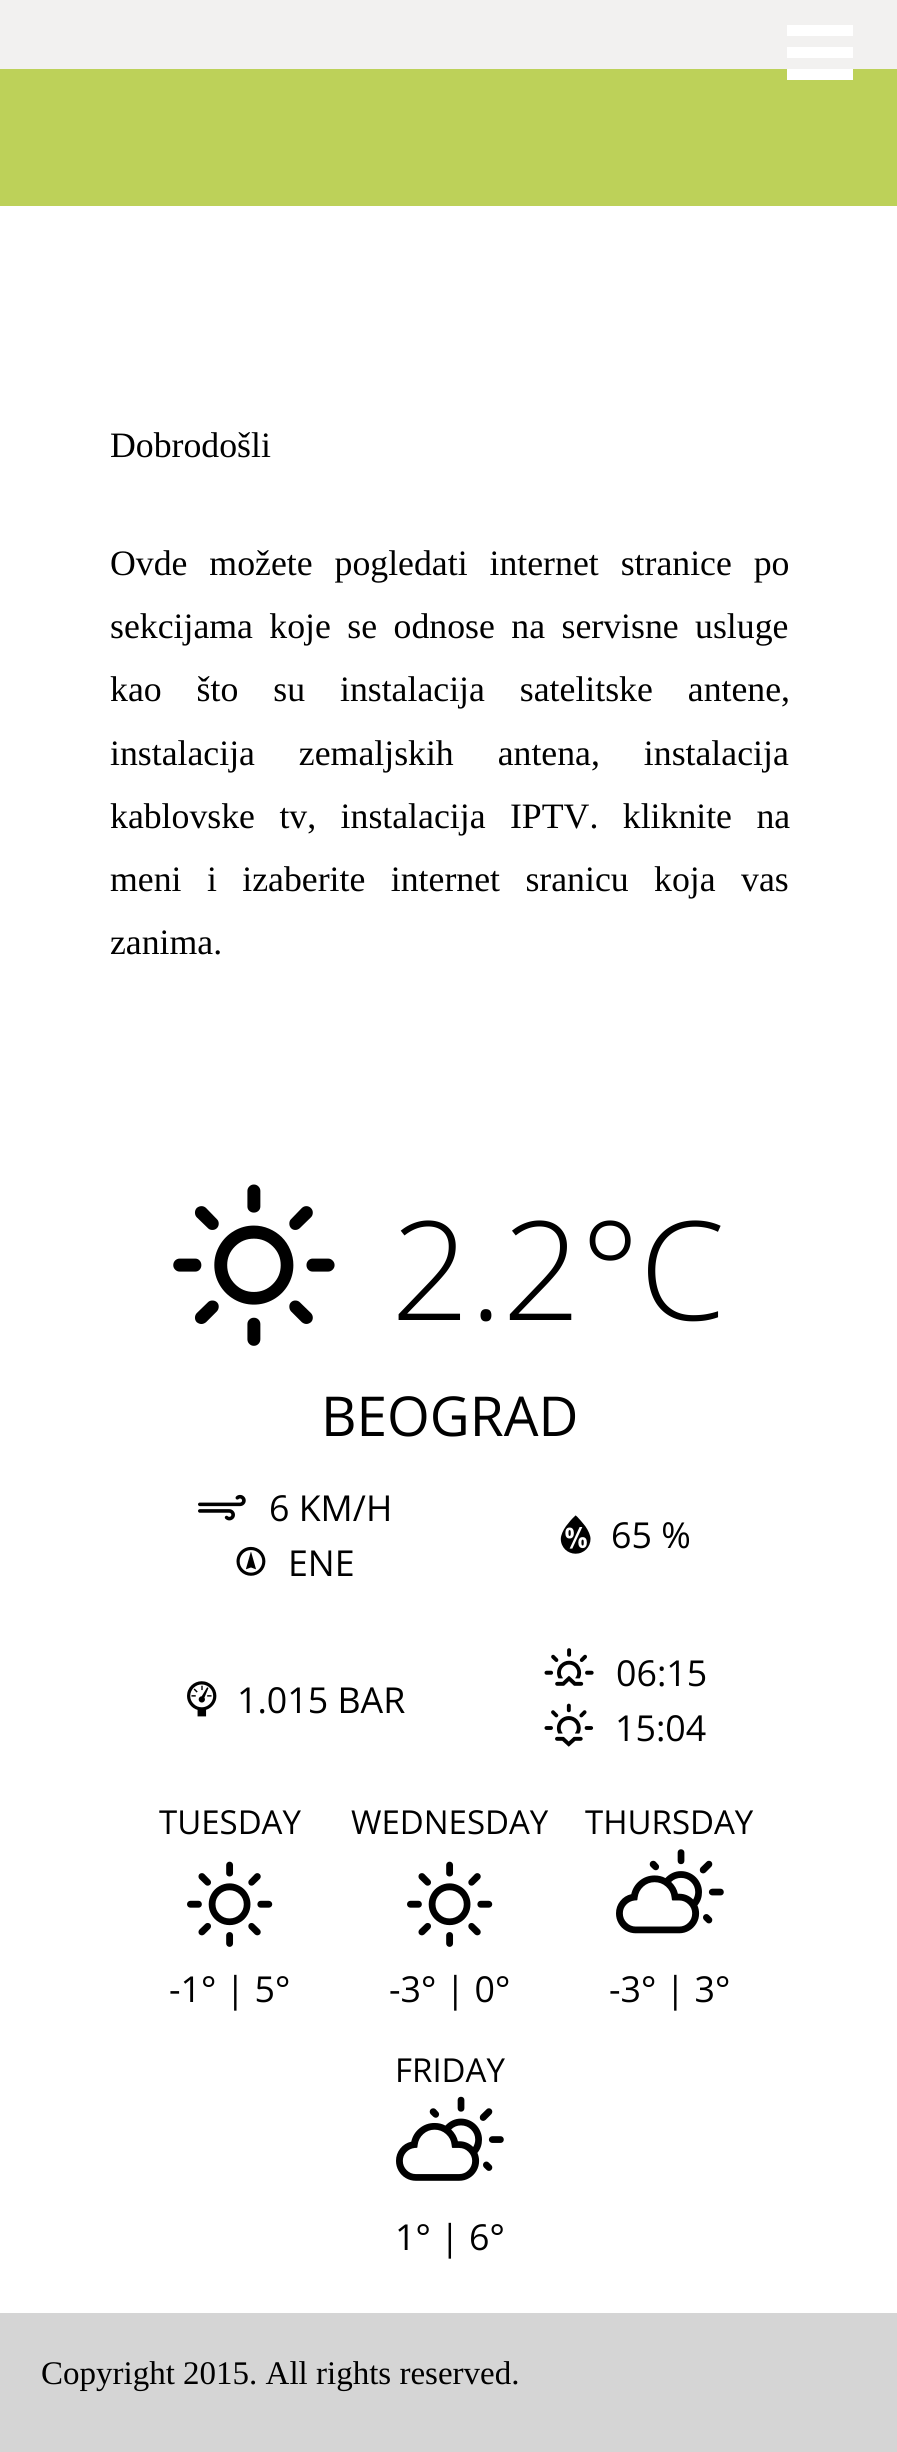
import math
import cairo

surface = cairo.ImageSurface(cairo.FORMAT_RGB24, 897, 2452)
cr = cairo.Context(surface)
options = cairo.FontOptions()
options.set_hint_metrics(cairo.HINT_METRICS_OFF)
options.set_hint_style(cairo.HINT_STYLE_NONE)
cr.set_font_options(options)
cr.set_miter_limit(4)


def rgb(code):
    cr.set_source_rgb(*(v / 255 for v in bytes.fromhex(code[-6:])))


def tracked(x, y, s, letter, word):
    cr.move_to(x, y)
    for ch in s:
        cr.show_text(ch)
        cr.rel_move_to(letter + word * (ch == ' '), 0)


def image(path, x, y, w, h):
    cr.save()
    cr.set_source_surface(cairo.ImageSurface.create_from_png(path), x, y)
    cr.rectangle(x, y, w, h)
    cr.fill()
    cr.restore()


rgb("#ffffff")
cr.paint()
for x, y, w, h, color in [
    (0, 0, 897, 69, "#f2f1f0"),
    (787, 25, 66, 11, "#ffffff"),
    (787, 47, 66, 11, "#ffffff"),
    (0, 69, 897, 137, "#bdd159"),
    (787, 69, 66, 11, "#ffffff"),
]:
    rgb(color)
    cr.rectangle(x, y, w, h)
    cr.fill()
image("img/1.png", 173, 1184, 162, 162)
image("img/2.png", 198, 1494, 48, 27)
image("img/3.png", 236, 1546, 30, 30)
image("img/4.png", 560, 1515, 31, 39)
image("img/5.png", 187, 1681, 30, 36)
image("img/6.png", 544, 1648, 50, 38)
image("img/7.png", 544, 1703, 50, 44)
image("img/8.png", 187, 1861, 86, 86)
image("img/8.png", 407, 1861, 86, 86)
image("img/9.png", 616, 1849, 108, 85)
image("img/10.png", 396, 2096, 108, 85)
rgb("#d5d5d5")
cr.rectangle(0, 2313, 897, 139)
cr.fill()
cr.select_font_face("Liberation Serif")
cr.set_font_size(35.75)
rgb("#000000")
cr.move_to(110, 457)
cr.show_text("Dobrodošli")
tracked(110, 575, "Ovde možete pogledati internet stranice po", 0, 13)
tracked(110, 638, "sekcijama koje se odnose na servisne usluge", 0, 7.5)
tracked(110, 701, "kao što su instalacija satelitske antene,", 0, 26)
tracked(110, 765, "instalacija zemaljskih antena, instalacija", 0, 35)
tracked(110, 828, "kablovske tv, instalacija IPTV. kliknite na", 0, 15.5)
tracked(110, 891, "meni i izaberite internet sranicu koja vas", 0, 16.5)
cr.move_to(110, 954)
cr.show_text("zanima.")
cr.select_font_face("Open Sans Light")
cr.set_font_size(137.5)
cr.move_to(391, 1320)
cr.show_text("2.2°C")
cr.select_font_face("Open Sans")
cr.set_font_size(55)
cr.move_to(321, 1436)
cr.show_text("BEOGRAD")
cr.set_font_size(35.75)
for x, y, s in [
    (269, 1521, "6 KM/H"),
    (288, 1576, "ENE"),
    (611, 1548, "65 %"),
    (237, 1713, "1.015 BAR"),
    (616, 1686, "06:15"),
    (615, 1741, "15:04"),
]:
    cr.move_to(x, y)
    cr.show_text(s)
cr.set_font_size(33)
cr.move_to(159, 1834)
cr.show_text("TUESDAY")
cr.set_font_size(35.75)
cr.move_to(169, 2002)
cr.show_text("-1° | 5°")
cr.set_font_size(33)
cr.move_to(351, 1834)
cr.show_text("WEDNESDAY")
cr.set_font_size(35.75)
cr.move_to(389, 2002)
cr.show_text("-3° | 0°")
cr.set_font_size(33)
cr.move_to(585, 1834)
cr.show_text("THURSDAY")
cr.set_font_size(35.75)
cr.move_to(609, 2002)
cr.show_text("-3° | 3°")
cr.set_font_size(33)
cr.move_to(395, 2082)
cr.show_text("FRIDAY")
cr.set_font_size(35.75)
cr.move_to(395, 2250)
cr.show_text("1° | 6°")
cr.select_font_face("Liberation Serif")
cr.set_font_size(33)
cr.move_to(41, 2384)
cr.show_text("Copyright 2015. All rights reserved.")
surface.write_to_png("page.png")
